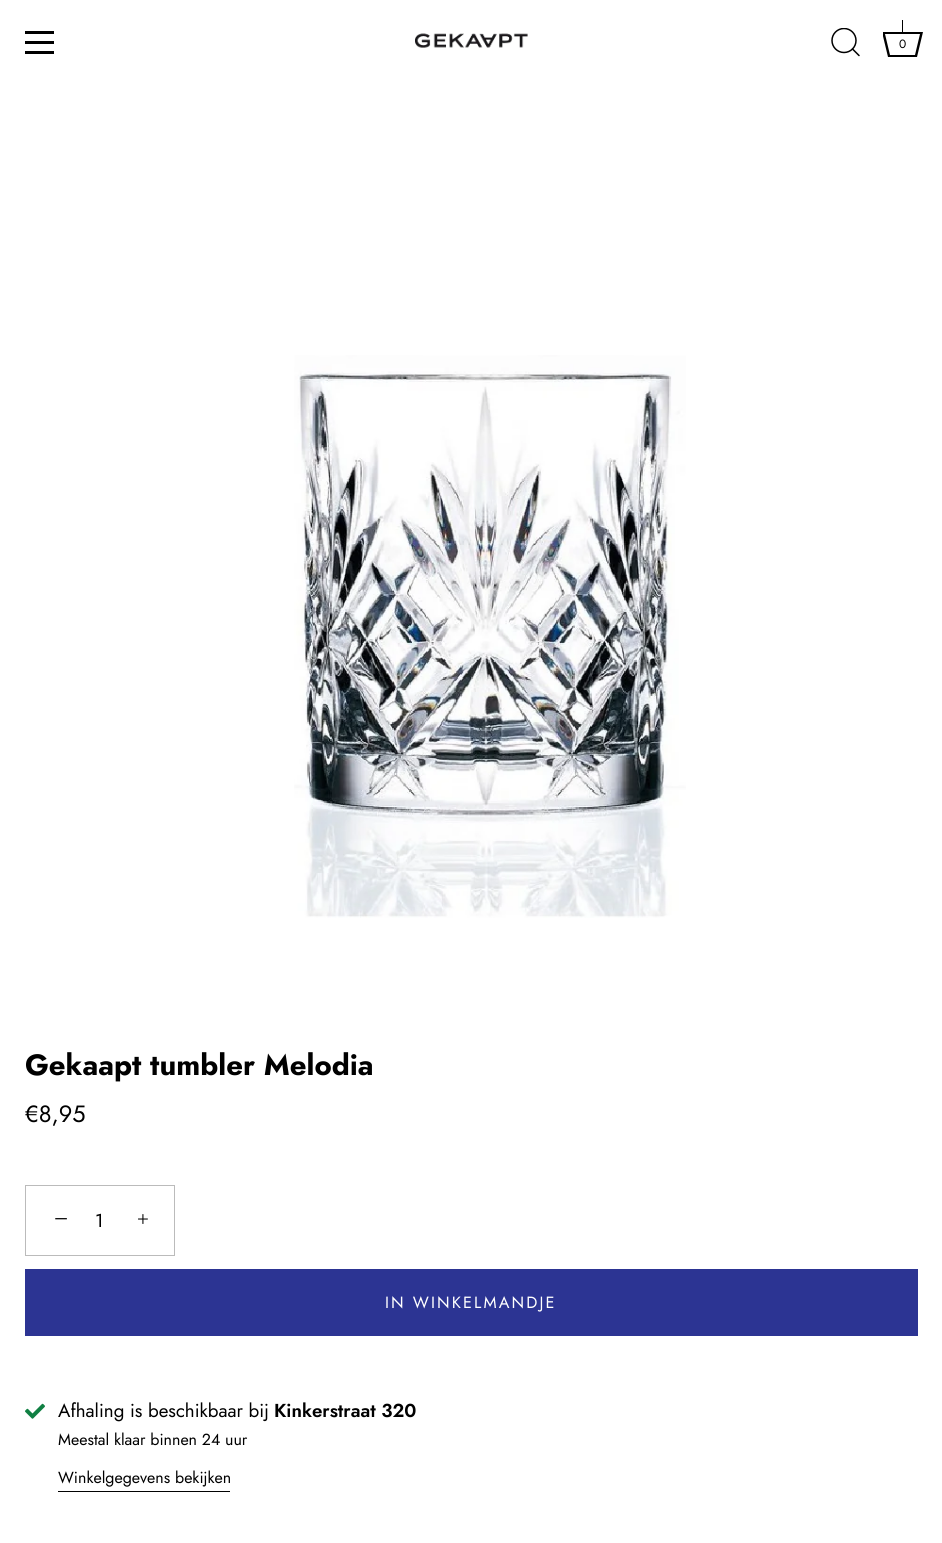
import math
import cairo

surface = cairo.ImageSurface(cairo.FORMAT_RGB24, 942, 1543)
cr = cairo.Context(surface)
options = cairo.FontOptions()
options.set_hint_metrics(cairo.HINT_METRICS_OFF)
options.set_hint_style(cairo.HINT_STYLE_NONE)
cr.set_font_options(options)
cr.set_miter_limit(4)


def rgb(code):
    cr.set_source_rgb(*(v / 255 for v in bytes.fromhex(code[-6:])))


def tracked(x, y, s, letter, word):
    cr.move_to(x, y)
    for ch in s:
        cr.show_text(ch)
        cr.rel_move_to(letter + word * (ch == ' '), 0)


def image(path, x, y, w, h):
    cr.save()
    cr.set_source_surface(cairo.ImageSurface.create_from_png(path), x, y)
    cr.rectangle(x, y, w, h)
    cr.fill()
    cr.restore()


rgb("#ffffff")
cr.paint()
for x, y, w, h, color in [
    (25, 31, 29, 3, "#000000"),
    (25, 41, 29, 3, "#000000"),
    (25, 51, 29, 3, "#000000"),
]:
    rgb(color)
    cr.rectangle(x, y, w, h)
    cr.fill()
image("img/1.png", 415, 33, 113, 15)
cr.save()
cr.rectangle(831, 28, 30, 30)
cr.clip()
cr.arc(844, 40.5, 12, 0, 2 * math.pi)
cr.set_line_width(1.5)
cr.stroke()
cr.restore()
cr.new_path()
cr.move_to(859, 55.5)
cr.line_to(852.5, 49)
cr.set_line_width(1.5)
cr.set_line_cap(cairo.LINE_CAP_ROUND)
cr.set_line_join(cairo.LINE_JOIN_ROUND)
cr.stroke()
cr.rectangle(902, 20, 1, 12)
cr.fill()
cr.save()
cr.rectangle(883, 19, 40, 40)
cr.clip()
cr.new_path()
cr.move_to(920, 34)
cr.line_to(915, 55)
cr.line_to(890, 55)
cr.line_to(885, 34)
cr.line_to(920, 34)
cr.move_to(923, 32)
cr.line_to(882, 32)
cr.line_to(888, 57)
cr.line_to(917, 57)
cr.close_path()
cr.fill()
cr.restore()
image("img/2.png", 294, 355, 392, 563)
cr.rectangle(25.5, 1185.5, 149, 70)
rgb("#bbbbbb")
cr.set_line_width(1)
cr.set_line_cap(cairo.LINE_CAP_BUTT)
cr.set_line_join(cairo.LINE_JOIN_MITER)
cr.stroke()
rgb("#2c3493")
cr.rectangle(25, 1269, 893, 67)
cr.fill()
image("img/3.png", 25, 1403, 20, 16)
rgb("#020202")
cr.rectangle(58, 1491, 172, 1)
cr.fill()
cr.select_font_face("Jost")
cr.set_font_size(12)
rgb("#000000")
cr.move_to(899, 48)
cr.show_text("0")
cr.select_font_face("Jost", cairo.FONT_SLANT_NORMAL, cairo.FONT_WEIGHT_BOLD)
cr.set_font_size(29.25)
cr.move_to(25, 1075)
cr.show_text("Gekaapt tumbler Melodia")
cr.select_font_face("Jost")
cr.set_font_size(23.5)
cr.move_to(25, 1122)
cr.show_text("€8,95")
cr.select_font_face("Liberation Serif")
cr.set_font_size(25)
cr.move_to(54, 1227)
cr.show_text("−")
cr.select_font_face("Jost")
cr.set_font_size(18.75)
tracked(95, 1227, "1", 1, 0)
cr.select_font_face("Liberation Serif")
cr.set_font_size(21)
cr.move_to(137, 1226)
cr.show_text("+")
cr.select_font_face("Jost")
cr.set_font_size(16.25)
rgb("#ffffff")
tracked(385, 1308, "IN WINKELMANDJE", 2.1, 0)
cr.set_font_size(18.75)
rgb("#000000")
cr.move_to(58, 1417)
cr.show_text("Afhaling is beschikbaar bij")
cr.select_font_face("Jost SemiBold")
cr.move_to(274, 1417)
cr.show_text("Kinkerstraat 320")
cr.select_font_face("Jost")
cr.set_font_size(16)
cr.move_to(58, 1445)
cr.show_text("Meestal klaar binnen 24 uur")
cr.move_to(58, 1483)
cr.show_text("Winkelgegevens bekijken")
surface.write_to_png("page.png")
